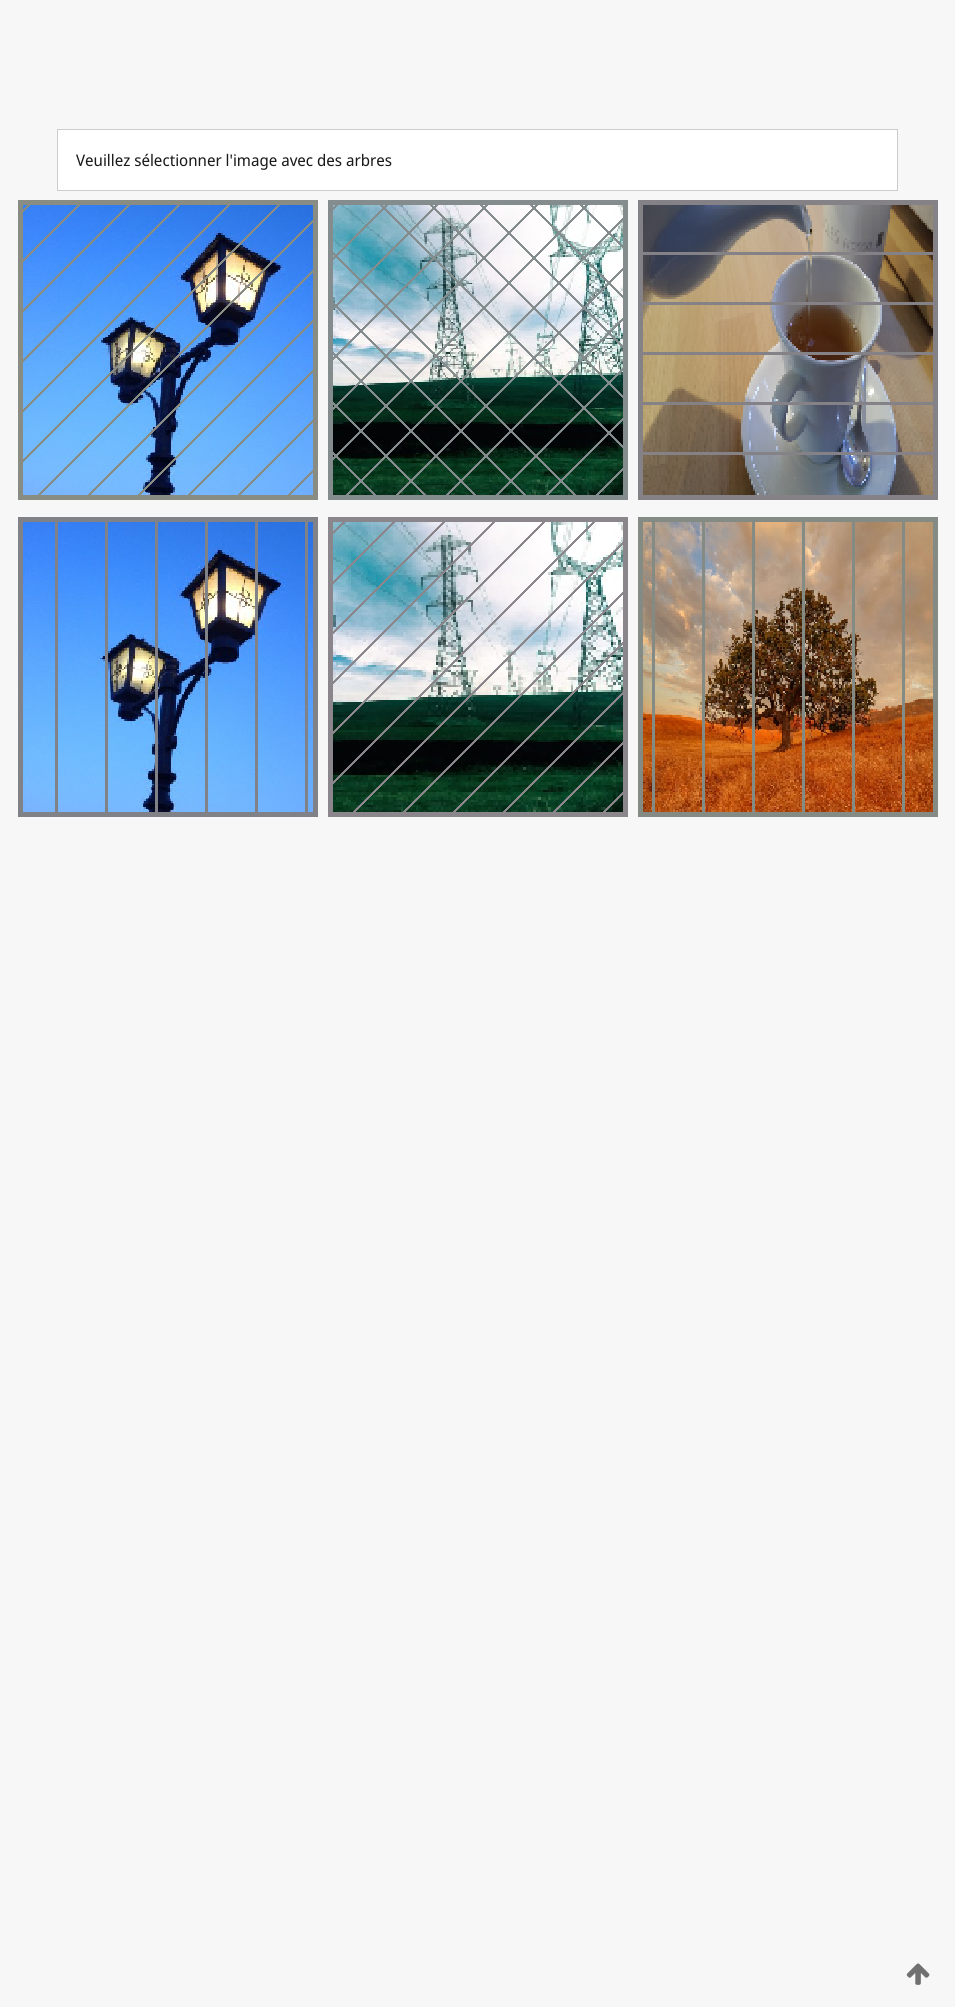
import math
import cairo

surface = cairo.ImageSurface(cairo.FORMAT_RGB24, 955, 2007)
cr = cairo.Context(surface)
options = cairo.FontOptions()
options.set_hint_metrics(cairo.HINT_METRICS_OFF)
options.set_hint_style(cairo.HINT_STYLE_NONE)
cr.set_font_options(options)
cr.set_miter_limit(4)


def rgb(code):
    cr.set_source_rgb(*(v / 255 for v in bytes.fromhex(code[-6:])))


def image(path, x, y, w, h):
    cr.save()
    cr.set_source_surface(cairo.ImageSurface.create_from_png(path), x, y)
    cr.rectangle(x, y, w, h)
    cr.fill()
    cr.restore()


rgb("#f7f7f7")
cr.paint()
rgb("#ffffff")
cr.rectangle(57.5, 129.5, 840, 61)
cr.fill_preserve()
rgb("#cccccc")
cr.set_line_width(1)
cr.stroke()
image("img/1.png", 18, 200, 300, 300)
image("img/2.png", 328, 200, 300, 300)
image("img/3.png", 638, 200, 300, 300)
image("img/4.png", 18, 517, 300, 300)
image("img/5.png", 328, 517, 300, 300)
image("img/6.png", 638, 517, 300, 300)
image("img/7.png", 906, 1963, 24, 22)
cr.select_font_face("Noto Sans Display")
cr.set_font_size(16)
rgb("#1a1a1a")
cr.move_to(76, 166)
cr.show_text("Veuillez sélectionner l'image avec des arbres")
surface.write_to_png("page.png")
